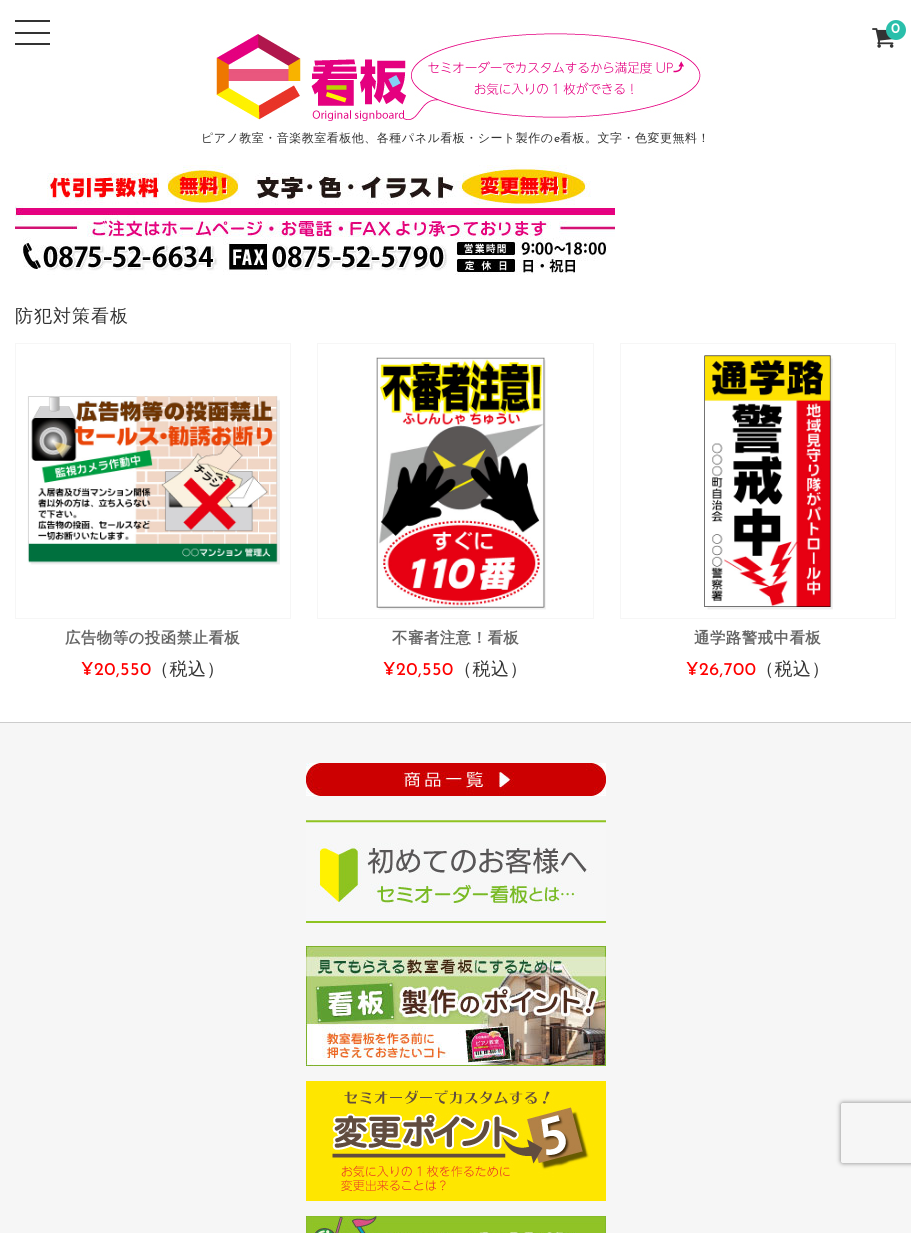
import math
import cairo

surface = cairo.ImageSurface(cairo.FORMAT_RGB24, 911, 1233)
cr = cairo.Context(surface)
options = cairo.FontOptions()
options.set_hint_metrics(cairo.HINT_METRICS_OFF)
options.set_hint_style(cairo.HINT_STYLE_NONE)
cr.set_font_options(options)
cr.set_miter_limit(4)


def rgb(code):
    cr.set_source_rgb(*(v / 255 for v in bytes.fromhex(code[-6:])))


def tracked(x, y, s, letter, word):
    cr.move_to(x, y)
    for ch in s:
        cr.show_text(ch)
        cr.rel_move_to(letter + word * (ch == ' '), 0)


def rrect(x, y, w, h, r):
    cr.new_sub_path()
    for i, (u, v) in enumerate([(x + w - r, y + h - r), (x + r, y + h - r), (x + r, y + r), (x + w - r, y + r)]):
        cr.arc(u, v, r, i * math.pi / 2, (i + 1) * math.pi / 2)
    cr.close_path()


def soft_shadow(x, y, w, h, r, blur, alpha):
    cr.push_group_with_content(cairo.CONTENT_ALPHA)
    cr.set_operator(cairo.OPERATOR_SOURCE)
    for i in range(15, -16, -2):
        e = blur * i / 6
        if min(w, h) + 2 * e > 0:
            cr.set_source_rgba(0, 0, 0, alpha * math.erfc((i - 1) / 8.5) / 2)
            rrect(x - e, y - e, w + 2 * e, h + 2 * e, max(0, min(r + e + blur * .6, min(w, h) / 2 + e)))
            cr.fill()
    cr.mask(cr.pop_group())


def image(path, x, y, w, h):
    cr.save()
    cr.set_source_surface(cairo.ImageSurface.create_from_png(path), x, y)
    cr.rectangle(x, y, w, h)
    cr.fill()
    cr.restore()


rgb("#ffffff")
cr.paint()
for x, y, w, h, color in [
    (15, 20, 35, 2, "#333333"),
    (15, 32, 35, 2, "#333333"),
    (15, 43, 35, 2, "#333333"),
]:
    rgb(color)
    cr.rectangle(x, y, w, h)
    cr.fill()
image("img/1.png", 872, 28, 22, 20)
rgb("#2abfab")
cr.arc(896, 30, 10, 0, 2 * math.pi)
cr.fill()
image("img/2.png", 216, 33, 485, 88)
image("img/3.png", 15, 165, 600, 110)
cr.rectangle(15.5, 343.5, 275, 275)
rgb("#f6f6f6")
cr.set_line_width(1)
cr.stroke()
image("img/4.png", 27, 395, 253, 170)
cr.rectangle(317.5, 343.5, 276, 275)
cr.stroke()
image("img/5.png", 376, 357, 170, 253)
cr.rectangle(620.5, 343.5, 275, 275)
cr.stroke()
image("img/6.png", 704, 355, 129, 255)
cr.rectangle(0, 723, 911, 510)
cr.fill()
rgb("#cccccc")
cr.rectangle(0, 722, 911, 1)
cr.fill()
image("img/7.png", 306, 763, 300, 33)
image("img/8.png", 306, 820, 300, 103)
image("img/9.png", 306, 946, 300, 120)
image("img/10.png", 306, 1081, 300, 120)
image("img/11.png", 306, 1216, 300, 17)
cr.save()
cr.set_fill_rule(cairo.FILL_RULE_EVEN_ODD)
cr.new_path()
cr.move_to(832, 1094)
cr.line_to(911, 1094)
cr.line_to(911, 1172)
cr.line_to(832, 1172)
cr.close_path()
cr.move_to(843, 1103)
cr.line_to(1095, 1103)
cr.curve_to(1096, 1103, 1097, 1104, 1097, 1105)
cr.line_to(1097, 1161)
cr.curve_to(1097, 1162, 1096, 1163, 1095, 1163)
cr.line_to(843, 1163)
cr.curve_to(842, 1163, 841, 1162, 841, 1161)
cr.line_to(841, 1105)
cr.curve_to(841, 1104, 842, 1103, 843, 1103)
cr.close_path()
cr.clip()
rgb("#808080")
soft_shadow(841, 1103, 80, 60, 2, 2.5, 1)
cr.restore()
cr.select_font_face("Josefin Sans", cairo.FONT_SLANT_NORMAL, cairo.FONT_WEIGHT_BOLD)
cr.set_font_size(14)
rgb("#ffffff")
tracked(891, 33, "0", 0.5, 0)
cr.select_font_face("WenQuanYi Zen Hei Medium")
cr.set_font_size(12)
rgb("#333333")
tracked(201, 142, "ピアノ教室・音楽教室看板他、各種パネル看板・シート製作の", 0.5, 0)
cr.select_font_face("Josefin Sans Thin")
tracked(554, 142, "e", 0.5, 0)
cr.select_font_face("WenQuanYi Zen Hei Medium")
tracked(560, 142, "看板。文字・色変更無料！", 0.5, 0)
cr.set_font_size(18)
tracked(15, 322, "防犯対策看板", 1, 0)
cr.select_font_face("WenQuanYi Zen Hei", cairo.FONT_SLANT_NORMAL, cairo.FONT_WEIGHT_BOLD)
cr.set_font_size(15.4)
rgb("#666666")
tracked(65, 643, "広告物等の投函禁止看板", 0.5, 0)
cr.select_font_face("Josefin Sans Thin")
cr.set_font_size(18)
rgb("#ff0000")
tracked(81, 675, "¥20,550", 0.5, 0)
cr.select_font_face("WenQuanYi Zen Hei Medium")
rgb("#333333")
tracked(151, 675, "（税込）", 0.5, 0)
cr.select_font_face("WenQuanYi Zen Hei", cairo.FONT_SLANT_NORMAL, cairo.FONT_WEIGHT_BOLD)
cr.set_font_size(15.4)
rgb("#666666")
tracked(392, 643, "不審者注意！看板", 0.5, 0)
cr.select_font_face("Josefin Sans Thin")
cr.set_font_size(18)
rgb("#ff0000")
tracked(383, 675, "¥20,550", 0.5, 0)
cr.select_font_face("WenQuanYi Zen Hei Medium")
rgb("#333333")
tracked(454, 675, "（税込）", 0.5, 0)
cr.select_font_face("WenQuanYi Zen Hei", cairo.FONT_SLANT_NORMAL, cairo.FONT_WEIGHT_BOLD)
cr.set_font_size(15.4)
rgb("#666666")
tracked(694, 643, "通学路警戒中看板", 0.5, 0)
cr.select_font_face("Josefin Sans Thin")
cr.set_font_size(18)
rgb("#ff0000")
tracked(686, 675, "¥26,700", 0.5, 0)
cr.select_font_face("WenQuanYi Zen Hei Medium")
rgb("#333333")
tracked(756, 675, "（税込）", 0.5, 0)
surface.write_to_png("page.png")
